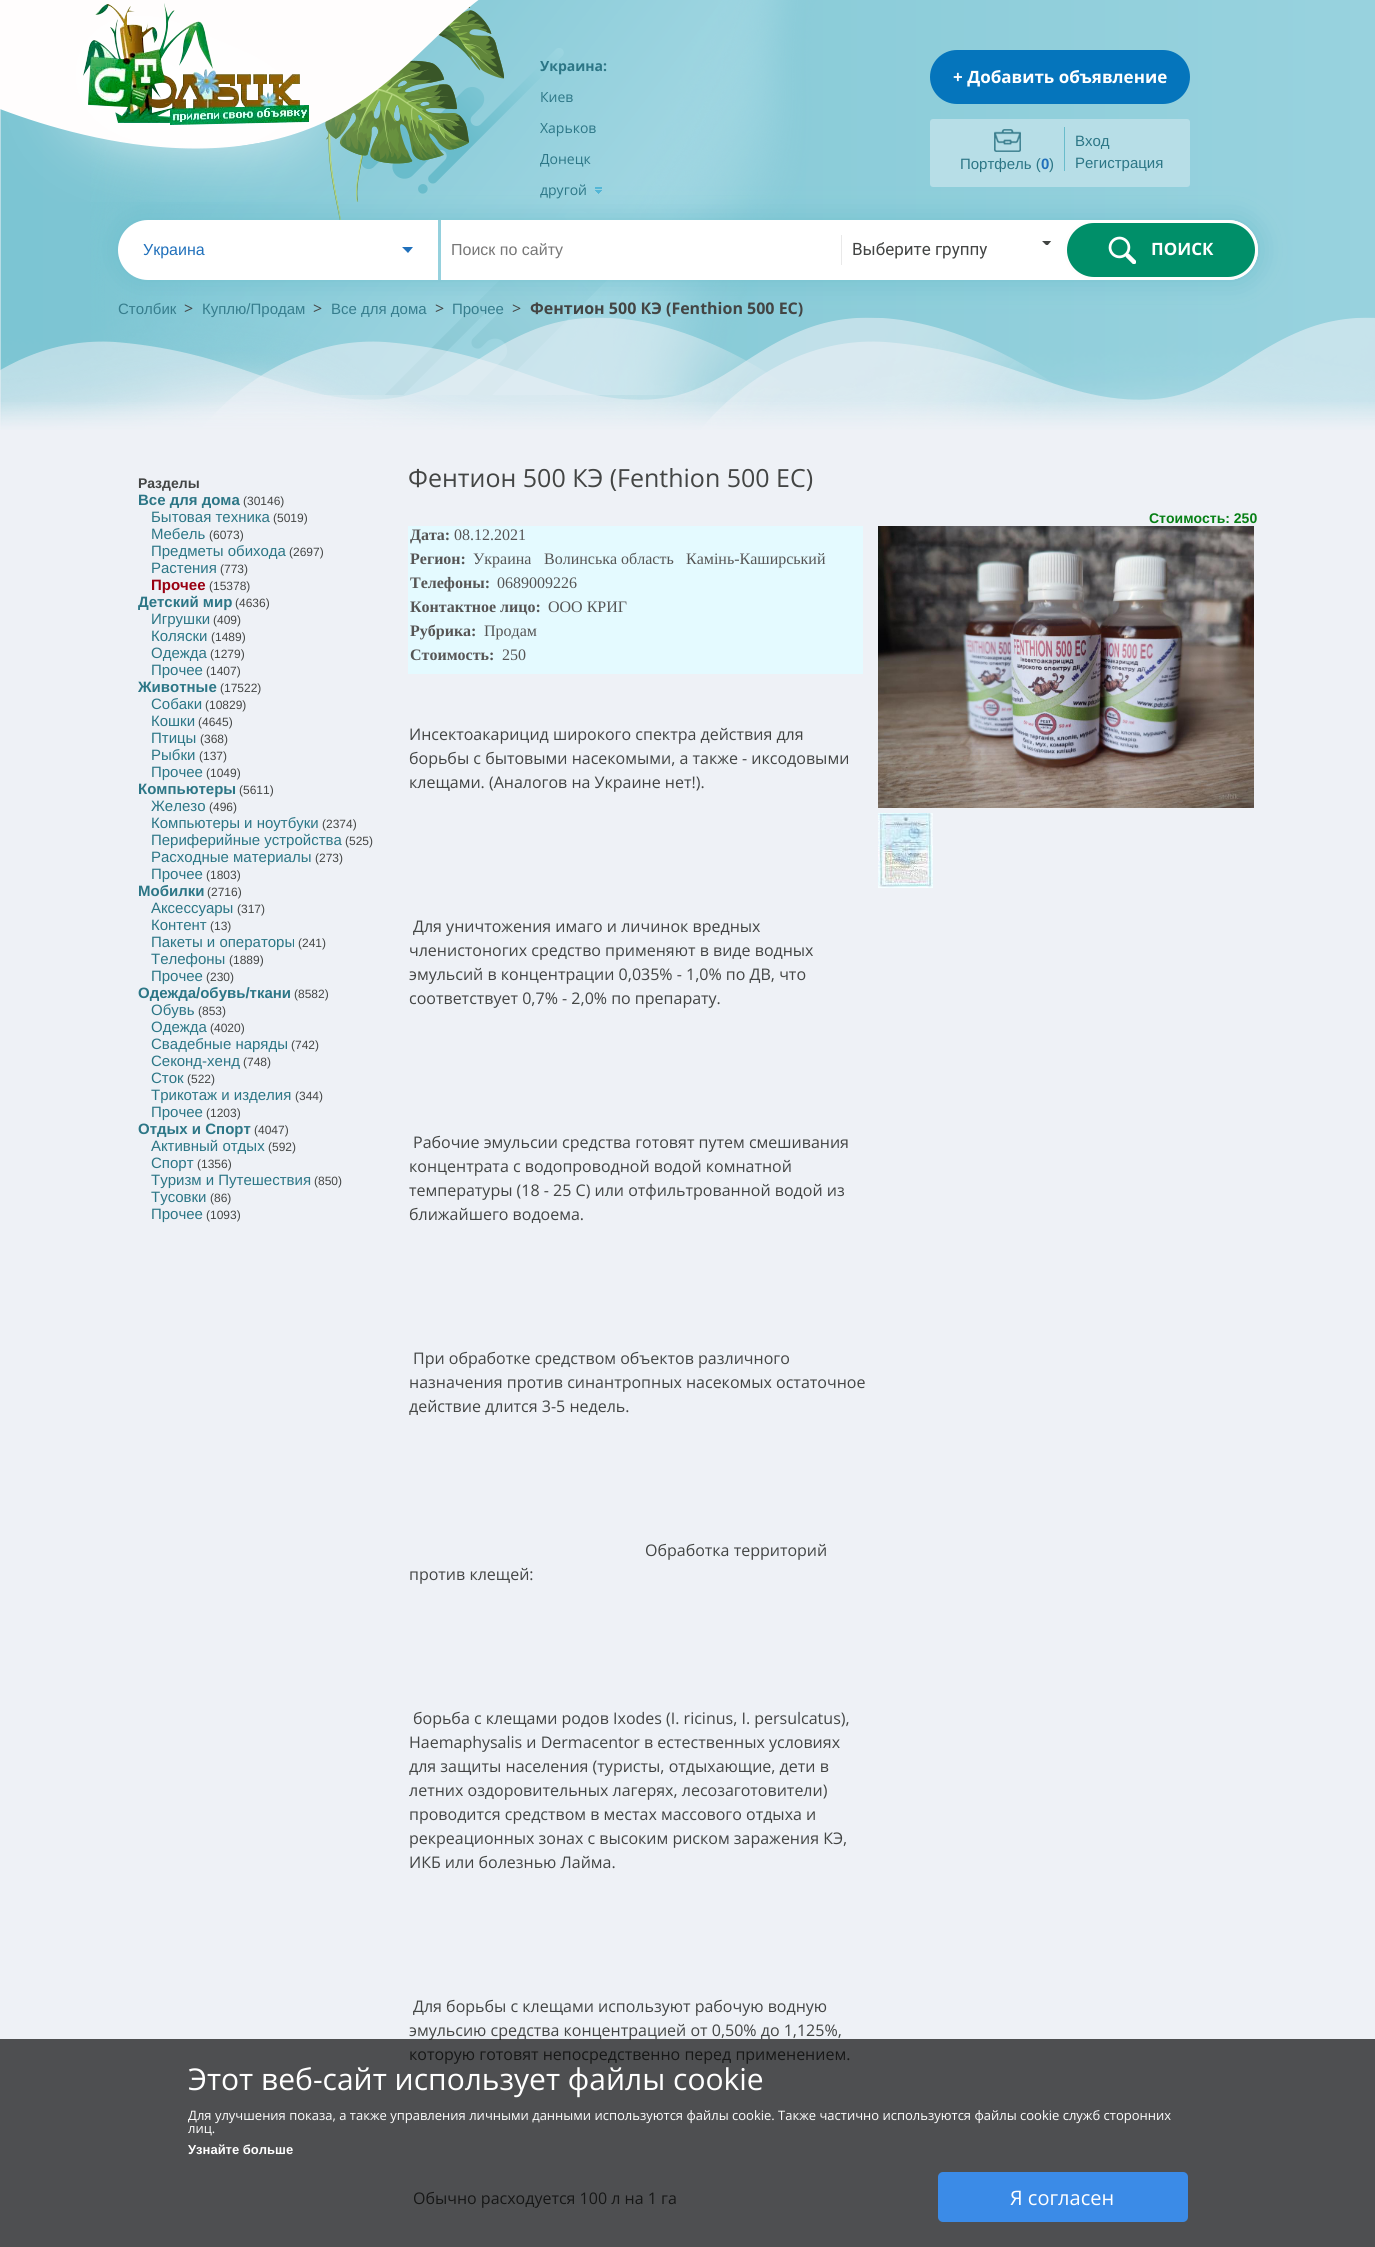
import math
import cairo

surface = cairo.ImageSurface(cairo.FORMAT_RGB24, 1375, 2247)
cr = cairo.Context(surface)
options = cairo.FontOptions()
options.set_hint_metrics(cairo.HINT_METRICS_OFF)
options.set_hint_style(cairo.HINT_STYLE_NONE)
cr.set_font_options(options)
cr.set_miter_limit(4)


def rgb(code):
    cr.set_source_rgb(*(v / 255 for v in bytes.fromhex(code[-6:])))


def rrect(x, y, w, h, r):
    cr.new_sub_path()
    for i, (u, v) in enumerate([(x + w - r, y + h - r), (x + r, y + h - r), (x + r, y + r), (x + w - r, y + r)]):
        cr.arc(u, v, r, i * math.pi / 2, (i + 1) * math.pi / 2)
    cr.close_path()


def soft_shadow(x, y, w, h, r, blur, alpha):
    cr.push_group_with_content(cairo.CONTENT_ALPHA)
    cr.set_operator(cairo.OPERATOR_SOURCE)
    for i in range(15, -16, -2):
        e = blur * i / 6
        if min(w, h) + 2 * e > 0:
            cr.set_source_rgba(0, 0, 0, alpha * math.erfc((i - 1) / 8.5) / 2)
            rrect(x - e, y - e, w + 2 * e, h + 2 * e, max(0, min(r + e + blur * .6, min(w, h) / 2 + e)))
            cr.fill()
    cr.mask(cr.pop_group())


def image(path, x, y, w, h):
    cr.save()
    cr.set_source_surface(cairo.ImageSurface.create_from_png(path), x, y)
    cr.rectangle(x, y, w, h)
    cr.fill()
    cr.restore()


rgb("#eef1f6")
cr.paint()
image("img/1.png", 0, 0, 1375, 430)
cr.save()
cr.set_fill_rule(cairo.FILL_RULE_EVEN_ODD)
cr.new_path()
cr.move_to(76, 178)
cr.line_to(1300, 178)
cr.line_to(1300, 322)
cr.line_to(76, 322)
cr.close_path()
cr.move_to(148, 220)
cr.line_to(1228, 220)
cr.curve_to(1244.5, 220, 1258, 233.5, 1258, 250)
cr.curve_to(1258, 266.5, 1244.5, 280, 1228, 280)
cr.line_to(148, 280)
cr.curve_to(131.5, 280, 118, 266.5, 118, 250)
cr.curve_to(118, 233.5, 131.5, 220, 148, 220)
cr.close_path()
cr.clip()
rgb("#69bccb")
soft_shadow(118, 220, 1140, 60, 30, 13.5, 0.75)
cr.restore()
image("img/2.png", 0, 0, 479, 202)
image("img/3.png", 595, 187, 7, 7)
rgb("#0575bc")
rrect(930, 50, 260, 54, 27)
cr.fill()
rgb("#b7dee7")
rrect(930, 119, 260, 68, 3)
cr.fill()
image("img/4.png", 994, 129, 27, 23)
rgb("#69bccb")
cr.rectangle(1064, 127, 1, 44)
cr.fill()
rgb("#ffffff")
cr.new_path()
cr.move_to(148, 220)
cr.line_to(438, 220)
cr.line_to(438, 280)
cr.line_to(148, 280)
cr.curve_to(131.5, 280, 118, 266.5, 118, 250)
cr.curve_to(118, 233.5, 131.5, 220, 148, 220)
cr.close_path()
cr.fill()
rgb("#2070bb")
cr.new_path()
cr.move_to(402, 247)
cr.line_to(413, 247)
cr.line_to(408, 253)
cr.close_path()
cr.fill()
rgb("#ffffff")
cr.new_path()
cr.move_to(441, 220)
cr.line_to(1228, 220)
cr.curve_to(1244.5, 220, 1258, 233.5, 1258, 250)
cr.curve_to(1258, 266.5, 1244.5, 280, 1228, 280)
cr.line_to(441, 280)
cr.close_path()
cr.fill()
rgb("#e9e9e9")
cr.rectangle(841, 235, 1, 30)
cr.fill()
cr.save()
cr.rectangle(1041, 241, 11, 4)
cr.clip()
rgb("#424543")
cr.new_path()
cr.move_to(1041, 240)
cr.line_to(1052, 240)
cr.line_to(1047, 246)
cr.close_path()
cr.fill()
cr.restore()
rgb("#008f69")
rrect(1065.5, 221.5, 191, 57, 28.5)
cr.fill_preserve()
rgb("#fffdfd")
cr.set_line_width(3)
cr.stroke()
image("img/5.png", 1108, 236, 28, 28)
gradient = cairo.LinearGradient(688, 465, 688, 400)
gradient.add_color_stop_rgba(0, 0.933, 0.945, 0.965, 0.59)
gradient.add_color_stop_rgba(0.4, 0.933, 0.945, 0.965, 0.73)
gradient.add_color_stop_rgba(0.55, 0.933, 0.945, 0.965, 0.94)
gradient.add_color_stop_rgba(1, 0.933, 0.945, 0.965, 0)
cr.set_source(gradient)
cr.rectangle(0, 402, 1375, 28)
cr.fill()
rgb("#e4faff")
cr.rectangle(408, 526, 455, 148)
cr.fill()
image("img/6.png", 878, 526, 376, 282)
image("img/7.png", 878, 813, 55, 75)
cr.select_font_face("Open Sans", cairo.FONT_SLANT_NORMAL, cairo.FONT_WEIGHT_BOLD)
cr.set_font_size(14)
rgb("#2c7686")
cr.move_to(540, 71)
cr.show_text("Украина:")
cr.select_font_face("Open Sans")
for x, y, s in [
    (540, 102, "Киев"),
    (540, 133, "Харьков"),
    (540, 164, "Донецк"),
    (540, 195, "другой"),
]:
    cr.move_to(x, y)
    cr.show_text(s)
cr.select_font_face("Open Sans", cairo.FONT_SLANT_NORMAL, cairo.FONT_WEIGHT_BOLD)
cr.set_font_size(17)
rgb("#ffffff")
cr.move_to(953, 83)
cr.show_text("+ Добавить объявление")
cr.select_font_face("Liberation Sans")
cr.set_font_size(15)
rgb("#2c7686")
cr.move_to(960, 169)
cr.show_text("Портфель (")
cr.select_font_face("Liberation Sans", cairo.FONT_SLANT_NORMAL, cairo.FONT_WEIGHT_BOLD)
rgb("#2070bb")
cr.move_to(1041, 169)
cr.show_text("0")
cr.select_font_face("Liberation Sans")
rgb("#2c7686")
for x, y, s in [
    (1049, 169, ")"),
    (1075, 146, "Вход"),
    (1075, 168, "Регистрация"),
]:
    cr.move_to(x, y)
    cr.show_text(s)
cr.set_font_size(16)
rgb("#2070bb")
cr.move_to(143, 255)
cr.show_text("Украина")
rgb("#777777")
cr.move_to(451, 255)
cr.show_text("Поиск по сайту")
cr.select_font_face("Roboto")
cr.set_font_size(17)
rgb("#434544")
cr.move_to(852, 255)
cr.show_text("Выберите группу")
cr.select_font_face("Open Sans", cairo.FONT_SLANT_NORMAL, cairo.FONT_WEIGHT_BOLD)
rgb("#ffffff")
cr.move_to(1151, 255)
cr.show_text("ПОИСК")
cr.select_font_face("Liberation Sans")
cr.set_font_size(15)
rgb("#367d8d")
cr.move_to(118, 314)
cr.show_text("Столбик")
cr.select_font_face("Open Sans")
cr.set_font_size(16)
rgb("#434544")
cr.move_to(184, 314)
cr.show_text(">")
cr.select_font_face("Liberation Sans")
cr.set_font_size(15)
rgb("#367d8d")
cr.move_to(202, 314)
cr.show_text("Куплю/Продам")
cr.select_font_face("Open Sans")
cr.set_font_size(16)
rgb("#434544")
cr.move_to(313, 314)
cr.show_text(">")
cr.select_font_face("Liberation Sans")
cr.set_font_size(15)
rgb("#367d8d")
cr.move_to(331, 314)
cr.show_text("Все для дома")
cr.select_font_face("Open Sans")
cr.set_font_size(16)
rgb("#434544")
cr.move_to(435, 314)
cr.show_text(">")
cr.select_font_face("Liberation Sans")
cr.set_font_size(15)
rgb("#367d8d")
cr.move_to(452, 314)
cr.show_text("Прочее")
cr.select_font_face("Open Sans")
cr.set_font_size(16)
rgb("#434544")
cr.move_to(512, 314)
cr.show_text(">")
cr.select_font_face("Open Sans", cairo.FONT_SLANT_NORMAL, cairo.FONT_WEIGHT_BOLD)
cr.move_to(530, 314)
cr.show_text("Фентион 500 КЭ (Fenthion 500 EC)")
cr.select_font_face("Liberation Sans", cairo.FONT_SLANT_NORMAL, cairo.FONT_WEIGHT_BOLD)
cr.set_font_size(14)
cr.move_to(138, 488)
cr.show_text("Разделы")
cr.set_font_size(15)
rgb("#2c7686")
cr.move_to(138, 505)
cr.show_text("Все для дома")
cr.select_font_face("Liberation Sans")
cr.set_font_size(12)
rgb("#434544")
cr.move_to(243, 505)
cr.show_text("(30146)")
cr.set_font_size(15)
rgb("#2c7686")
cr.move_to(151, 522)
cr.show_text("Бытовая техника")
cr.set_font_size(12)
rgb("#434544")
cr.move_to(273, 522)
cr.show_text("(5019)")
cr.set_font_size(15)
rgb("#2c7686")
cr.move_to(151, 539)
cr.show_text("Мебель")
cr.set_font_size(12)
rgb("#434544")
cr.move_to(209, 539)
cr.show_text("(6073)")
cr.set_font_size(15)
rgb("#2c7686")
cr.move_to(151, 556)
cr.show_text("Предметы обихода")
cr.set_font_size(12)
rgb("#434544")
cr.move_to(289, 556)
cr.show_text("(2697)")
cr.set_font_size(15)
rgb("#2c7686")
cr.move_to(151, 573)
cr.show_text("Растения")
cr.set_font_size(12)
rgb("#434544")
cr.move_to(220, 573)
cr.show_text("(773)")
cr.select_font_face("Liberation Sans", cairo.FONT_SLANT_NORMAL, cairo.FONT_WEIGHT_BOLD)
cr.set_font_size(15)
rgb("#990011")
cr.move_to(151, 590)
cr.show_text("Прочее")
cr.select_font_face("Liberation Sans")
cr.set_font_size(12)
rgb("#434544")
cr.move_to(209, 590)
cr.show_text("(15378)")
cr.select_font_face("Liberation Sans", cairo.FONT_SLANT_NORMAL, cairo.FONT_WEIGHT_BOLD)
cr.set_font_size(15)
rgb("#2c7686")
cr.move_to(138, 607)
cr.show_text("Детский мир")
cr.select_font_face("Liberation Sans")
cr.set_font_size(12)
rgb("#434544")
cr.move_to(235, 607)
cr.show_text("(4636)")
cr.set_font_size(15)
rgb("#2c7686")
cr.move_to(151, 624)
cr.show_text("Игрушки")
cr.set_font_size(12)
rgb("#434544")
cr.move_to(213, 624)
cr.show_text("(409)")
cr.set_font_size(15)
rgb("#2c7686")
cr.move_to(151, 641)
cr.show_text("Коляски")
cr.set_font_size(12)
rgb("#434544")
cr.move_to(211, 641)
cr.show_text("(1489)")
cr.set_font_size(15)
rgb("#2c7686")
cr.move_to(151, 658)
cr.show_text("Одежда")
cr.set_font_size(12)
rgb("#434544")
cr.move_to(210, 658)
cr.show_text("(1279)")
cr.set_font_size(15)
rgb("#2c7686")
cr.move_to(151, 675)
cr.show_text("Прочее")
cr.set_font_size(12)
rgb("#434544")
cr.move_to(206, 675)
cr.show_text("(1407)")
cr.select_font_face("Liberation Sans", cairo.FONT_SLANT_NORMAL, cairo.FONT_WEIGHT_BOLD)
cr.set_font_size(15)
rgb("#2c7686")
cr.move_to(138, 692)
cr.show_text("Животные")
cr.select_font_face("Liberation Sans")
cr.set_font_size(12)
rgb("#434544")
cr.move_to(220, 692)
cr.show_text("(17522)")
cr.set_font_size(15)
rgb("#2c7686")
cr.move_to(151, 709)
cr.show_text("Собаки")
cr.set_font_size(12)
rgb("#434544")
cr.move_to(205, 709)
cr.show_text("(10829)")
cr.set_font_size(15)
rgb("#2c7686")
cr.move_to(151, 726)
cr.show_text("Кошки")
cr.set_font_size(12)
rgb("#434544")
cr.move_to(198, 726)
cr.show_text("(4645)")
cr.set_font_size(15)
rgb("#2c7686")
cr.move_to(151, 743)
cr.show_text("Птицы")
cr.set_font_size(12)
rgb("#434544")
cr.move_to(200, 743)
cr.show_text("(368)")
cr.set_font_size(15)
rgb("#2c7686")
cr.move_to(151, 760)
cr.show_text("Рыбки")
cr.set_font_size(12)
rgb("#434544")
cr.move_to(199, 760)
cr.show_text("(137)")
cr.set_font_size(15)
rgb("#2c7686")
cr.move_to(151, 777)
cr.show_text("Прочее")
cr.set_font_size(12)
rgb("#434544")
cr.move_to(206, 777)
cr.show_text("(1049)")
cr.select_font_face("Liberation Sans", cairo.FONT_SLANT_NORMAL, cairo.FONT_WEIGHT_BOLD)
cr.set_font_size(15)
rgb("#2c7686")
cr.move_to(138, 794)
cr.show_text("Компьютеры")
cr.select_font_face("Liberation Sans")
cr.set_font_size(12)
rgb("#434544")
cr.move_to(239, 794)
cr.show_text("(5611)")
cr.set_font_size(15)
rgb("#2c7686")
cr.move_to(151, 811)
cr.show_text("Железо")
cr.set_font_size(12)
rgb("#434544")
cr.move_to(209, 811)
cr.show_text("(496)")
cr.set_font_size(15)
rgb("#2c7686")
cr.move_to(151, 828)
cr.show_text("Компьютеры и ноутбуки")
cr.set_font_size(12)
rgb("#434544")
cr.move_to(322, 828)
cr.show_text("(2374)")
cr.set_font_size(15)
rgb("#2c7686")
cr.move_to(151, 845)
cr.show_text("Периферийные устройства")
cr.set_font_size(12)
rgb("#434544")
cr.move_to(345, 845)
cr.show_text("(525)")
cr.set_font_size(15)
rgb("#2c7686")
cr.move_to(151, 862)
cr.show_text("Расходные материалы")
cr.set_font_size(12)
rgb("#434544")
cr.move_to(315, 862)
cr.show_text("(273)")
cr.set_font_size(15)
rgb("#2c7686")
cr.move_to(151, 879)
cr.show_text("Прочее")
cr.set_font_size(12)
rgb("#434544")
cr.move_to(206, 879)
cr.show_text("(1803)")
cr.select_font_face("Liberation Sans", cairo.FONT_SLANT_NORMAL, cairo.FONT_WEIGHT_BOLD)
cr.set_font_size(15)
rgb("#2c7686")
cr.move_to(138, 896)
cr.show_text("Мобилки")
cr.select_font_face("Liberation Sans")
cr.set_font_size(12)
rgb("#434544")
cr.move_to(207, 896)
cr.show_text("(2716)")
cr.set_font_size(15)
rgb("#2c7686")
cr.move_to(151, 913)
cr.show_text("Аксессуары")
cr.set_font_size(12)
rgb("#434544")
cr.move_to(237, 913)
cr.show_text("(317)")
cr.set_font_size(15)
rgb("#2c7686")
cr.move_to(151, 930)
cr.show_text("Контент")
cr.set_font_size(12)
rgb("#434544")
cr.move_to(210, 930)
cr.show_text("(13)")
cr.set_font_size(15)
rgb("#2c7686")
cr.move_to(151, 947)
cr.show_text("Пакеты и операторы")
cr.set_font_size(12)
rgb("#434544")
cr.move_to(298, 947)
cr.show_text("(241)")
cr.set_font_size(15)
rgb("#2c7686")
cr.move_to(151, 964)
cr.show_text("Телефоны")
cr.set_font_size(12)
rgb("#434544")
cr.move_to(229, 964)
cr.show_text("(1889)")
cr.set_font_size(15)
rgb("#2c7686")
cr.move_to(151, 981)
cr.show_text("Прочее")
cr.set_font_size(12)
rgb("#434544")
cr.move_to(206, 981)
cr.show_text("(230)")
cr.select_font_face("Liberation Sans", cairo.FONT_SLANT_NORMAL, cairo.FONT_WEIGHT_BOLD)
cr.set_font_size(15)
rgb("#2c7686")
cr.move_to(138, 998)
cr.show_text("Одежда/обувь/ткани")
cr.select_font_face("Liberation Sans")
cr.set_font_size(12)
rgb("#434544")
cr.move_to(294, 998)
cr.show_text("(8582)")
cr.set_font_size(15)
rgb("#2c7686")
cr.move_to(151, 1015)
cr.show_text("Обувь")
cr.set_font_size(12)
rgb("#434544")
cr.move_to(198, 1015)
cr.show_text("(853)")
cr.set_font_size(15)
rgb("#2c7686")
cr.move_to(151, 1032)
cr.show_text("Одежда")
cr.set_font_size(12)
rgb("#434544")
cr.move_to(210, 1032)
cr.show_text("(4020)")
cr.set_font_size(15)
rgb("#2c7686")
cr.move_to(151, 1049)
cr.show_text("Свадебные наряды")
cr.set_font_size(12)
rgb("#434544")
cr.move_to(291, 1049)
cr.show_text("(742)")
cr.set_font_size(15)
rgb("#2c7686")
cr.move_to(151, 1066)
cr.show_text("Секонд-хенд")
cr.set_font_size(12)
rgb("#434544")
cr.move_to(243, 1066)
cr.show_text("(748)")
cr.set_font_size(15)
rgb("#2c7686")
cr.move_to(151, 1083)
cr.show_text("Сток")
cr.set_font_size(12)
rgb("#434544")
cr.move_to(187, 1083)
cr.show_text("(522)")
cr.set_font_size(15)
rgb("#2c7686")
cr.move_to(151, 1100)
cr.show_text("Трикотаж и изделия")
cr.set_font_size(12)
rgb("#434544")
cr.move_to(295, 1100)
cr.show_text("(344)")
cr.set_font_size(15)
rgb("#2c7686")
cr.move_to(151, 1117)
cr.show_text("Прочее")
cr.set_font_size(12)
rgb("#434544")
cr.move_to(206, 1117)
cr.show_text("(1203)")
cr.select_font_face("Liberation Sans", cairo.FONT_SLANT_NORMAL, cairo.FONT_WEIGHT_BOLD)
cr.set_font_size(15)
rgb("#2c7686")
cr.move_to(138, 1134)
cr.show_text("Отдых и Спорт")
cr.select_font_face("Liberation Sans")
cr.set_font_size(12)
rgb("#434544")
cr.move_to(254, 1134)
cr.show_text("(4047)")
cr.set_font_size(15)
rgb("#2c7686")
cr.move_to(151, 1151)
cr.show_text("Активный отдых")
cr.set_font_size(12)
rgb("#434544")
cr.move_to(268, 1151)
cr.show_text("(592)")
cr.set_font_size(15)
rgb("#2c7686")
cr.move_to(151, 1168)
cr.show_text("Спорт")
cr.set_font_size(12)
rgb("#434544")
cr.move_to(197, 1168)
cr.show_text("(1356)")
cr.set_font_size(15)
rgb("#2c7686")
cr.move_to(151, 1185)
cr.show_text("Туризм и Путешествия")
cr.set_font_size(12)
rgb("#434544")
cr.move_to(314, 1185)
cr.show_text("(850)")
cr.set_font_size(15)
rgb("#2c7686")
cr.move_to(151, 1202)
cr.show_text("Тусовки")
cr.set_font_size(12)
rgb("#434544")
cr.move_to(210, 1202)
cr.show_text("(86)")
cr.set_font_size(15)
rgb("#2c7686")
cr.move_to(151, 1219)
cr.show_text("Прочее")
cr.set_font_size(12)
rgb("#434544")
cr.move_to(206, 1219)
cr.show_text("(1093)")
cr.select_font_face("Open Sans")
cr.set_font_size(25)
cr.move_to(408, 487)
cr.show_text("Фентион 500 КЭ (Fenthion 500 EC)")
cr.select_font_face("Liberation Sans", cairo.FONT_SLANT_NORMAL, cairo.FONT_WEIGHT_BOLD)
cr.set_font_size(14)
rgb("#067f15")
cr.move_to(1149, 523)
cr.show_text("Стоимость: 250")
cr.select_font_face("Liberation Serif", cairo.FONT_SLANT_NORMAL, cairo.FONT_WEIGHT_BOLD)
cr.set_font_size(16)
rgb("#565555")
cr.move_to(410, 540)
cr.show_text("Дата:")
cr.select_font_face("Liberation Serif")
cr.move_to(454, 540)
cr.show_text("08.12.2021")
cr.select_font_face("Liberation Serif", cairo.FONT_SLANT_NORMAL, cairo.FONT_WEIGHT_BOLD)
cr.move_to(410, 564)
cr.show_text("Регион:")
cr.select_font_face("Liberation Serif")
for x, y, s in [
    (473, 564, "Украина"),
    (544, 564, "Волинська область"),
    (686, 564, "Камінь-Каширський"),
]:
    cr.move_to(x, y)
    cr.show_text(s)
cr.select_font_face("Liberation Serif", cairo.FONT_SLANT_NORMAL, cairo.FONT_WEIGHT_BOLD)
cr.move_to(410, 588)
cr.show_text("Телефоны:")
cr.select_font_face("Liberation Serif")
cr.move_to(497, 588)
cr.show_text("0689009226")
cr.select_font_face("Liberation Serif", cairo.FONT_SLANT_NORMAL, cairo.FONT_WEIGHT_BOLD)
cr.move_to(410, 612)
cr.show_text("Контактное лицо:")
cr.select_font_face("Liberation Serif")
cr.move_to(548, 612)
cr.show_text("ООО КРИГ")
cr.select_font_face("Liberation Serif", cairo.FONT_SLANT_NORMAL, cairo.FONT_WEIGHT_BOLD)
cr.move_to(410, 636)
cr.show_text("Рубрика:")
cr.select_font_face("Liberation Serif")
cr.move_to(484, 636)
cr.show_text("Продам")
cr.select_font_face("Liberation Serif", cairo.FONT_SLANT_NORMAL, cairo.FONT_WEIGHT_BOLD)
cr.move_to(410, 660)
cr.show_text("Стоимость:")
cr.select_font_face("Liberation Serif")
cr.move_to(502, 660)
cr.show_text("250")
cr.select_font_face("Open Sans")
rgb("#434544")
for x, y, s in [
    (409, 740, "Инсектоакарицид широкого спектра действия для"),
    (409, 764, "борьбы с бытовыми насекомыми, а также - иксодовыми"),
    (409, 788, "клещами. (Аналогов на Украине нет!)."),
    (413, 932, "Для уничтожения имаго и личинок вредных"),
    (409, 956, "членистоногих средство применяют в виде водных"),
    (409, 980, "эмульсий в концентрации 0,035% - 1,0% по ДВ, что"),
    (409, 1004, "соответствует 0,7% - 2,0% по препарату."),
    (413, 1148, "Рабочие эмульсии средства готовят путем смешивания"),
    (409, 1172, "концентрата с водопроводной водой комнатной"),
    (409, 1196, "температуры (18 - 25 С) или отфильтрованной водой из"),
    (409, 1220, "ближайшего водоема."),
    (413, 1364, "При обработке средством объектов различного"),
    (409, 1388, "назначения против синантропных насекомых остаточное"),
    (409, 1412, "действие длится 3-5 недель."),
    (645, 1556, "Обработка территорий"),
    (409, 1580, "против клещей:"),
    (413, 1724, "борьба с клещами родов Ixodes (I. ricinus, I. рersulcatus),"),
    (409, 1748, "Haemaphysalis и Dermacentor в естественных условиях"),
    (409, 1772, "для защиты населения (туристы, отдыхающие, дети в"),
    (409, 1796, "летних оздоровительных лагерях, лесозаготовители)"),
    (409, 1820, "проводится средством в местах массового отдыха и"),
    (409, 1844, "рекреационных зонах с высоким риском заражения КЭ,"),
    (409, 1868, "ИКБ или болезнью Лайма."),
    (413, 2012, "Для борьбы с клещами используют рабочую водную"),
    (409, 2036, "эмульсию средства концентрацией от 0,50% до 1,125%,"),
    (409, 2060, "которую готовят непосредственно перед применением."),
    (413, 2204, "Обычно расходуется 100 л на 1 га"),
]:
    cr.move_to(x, y)
    cr.show_text(s)
cr.set_source_rgba(0, 0, 0, 0.67)
cr.rectangle(0, 2039, 1375, 208)
cr.fill()
cr.set_font_size(30)
rgb("#ffffff")
cr.move_to(188, 2090)
cr.show_text("Этот веб-сайт использует файлы cookie")
cr.set_font_size(13)
cr.move_to(188, 2120)
cr.show_text("Для улучшения показа, а также управления личными данными используются файлы cookie. Также частично используются файлы cookie служб сторонних")
cr.move_to(188, 2133)
cr.show_text("лиц.")
cr.select_font_face("Liberation Sans", cairo.FONT_SLANT_NORMAL, cairo.FONT_WEIGHT_BOLD)
cr.move_to(188, 2154)
cr.show_text("Узнайте больше")
rgb("#3b8be7")
rrect(938, 2172, 250, 50, 5)
cr.fill()
cr.select_font_face("Open Sans")
cr.set_font_size(20)
rgb("#ffffff")
cr.move_to(1010, 2205)
cr.show_text("Я согласен")
surface.write_to_png("page.png")
